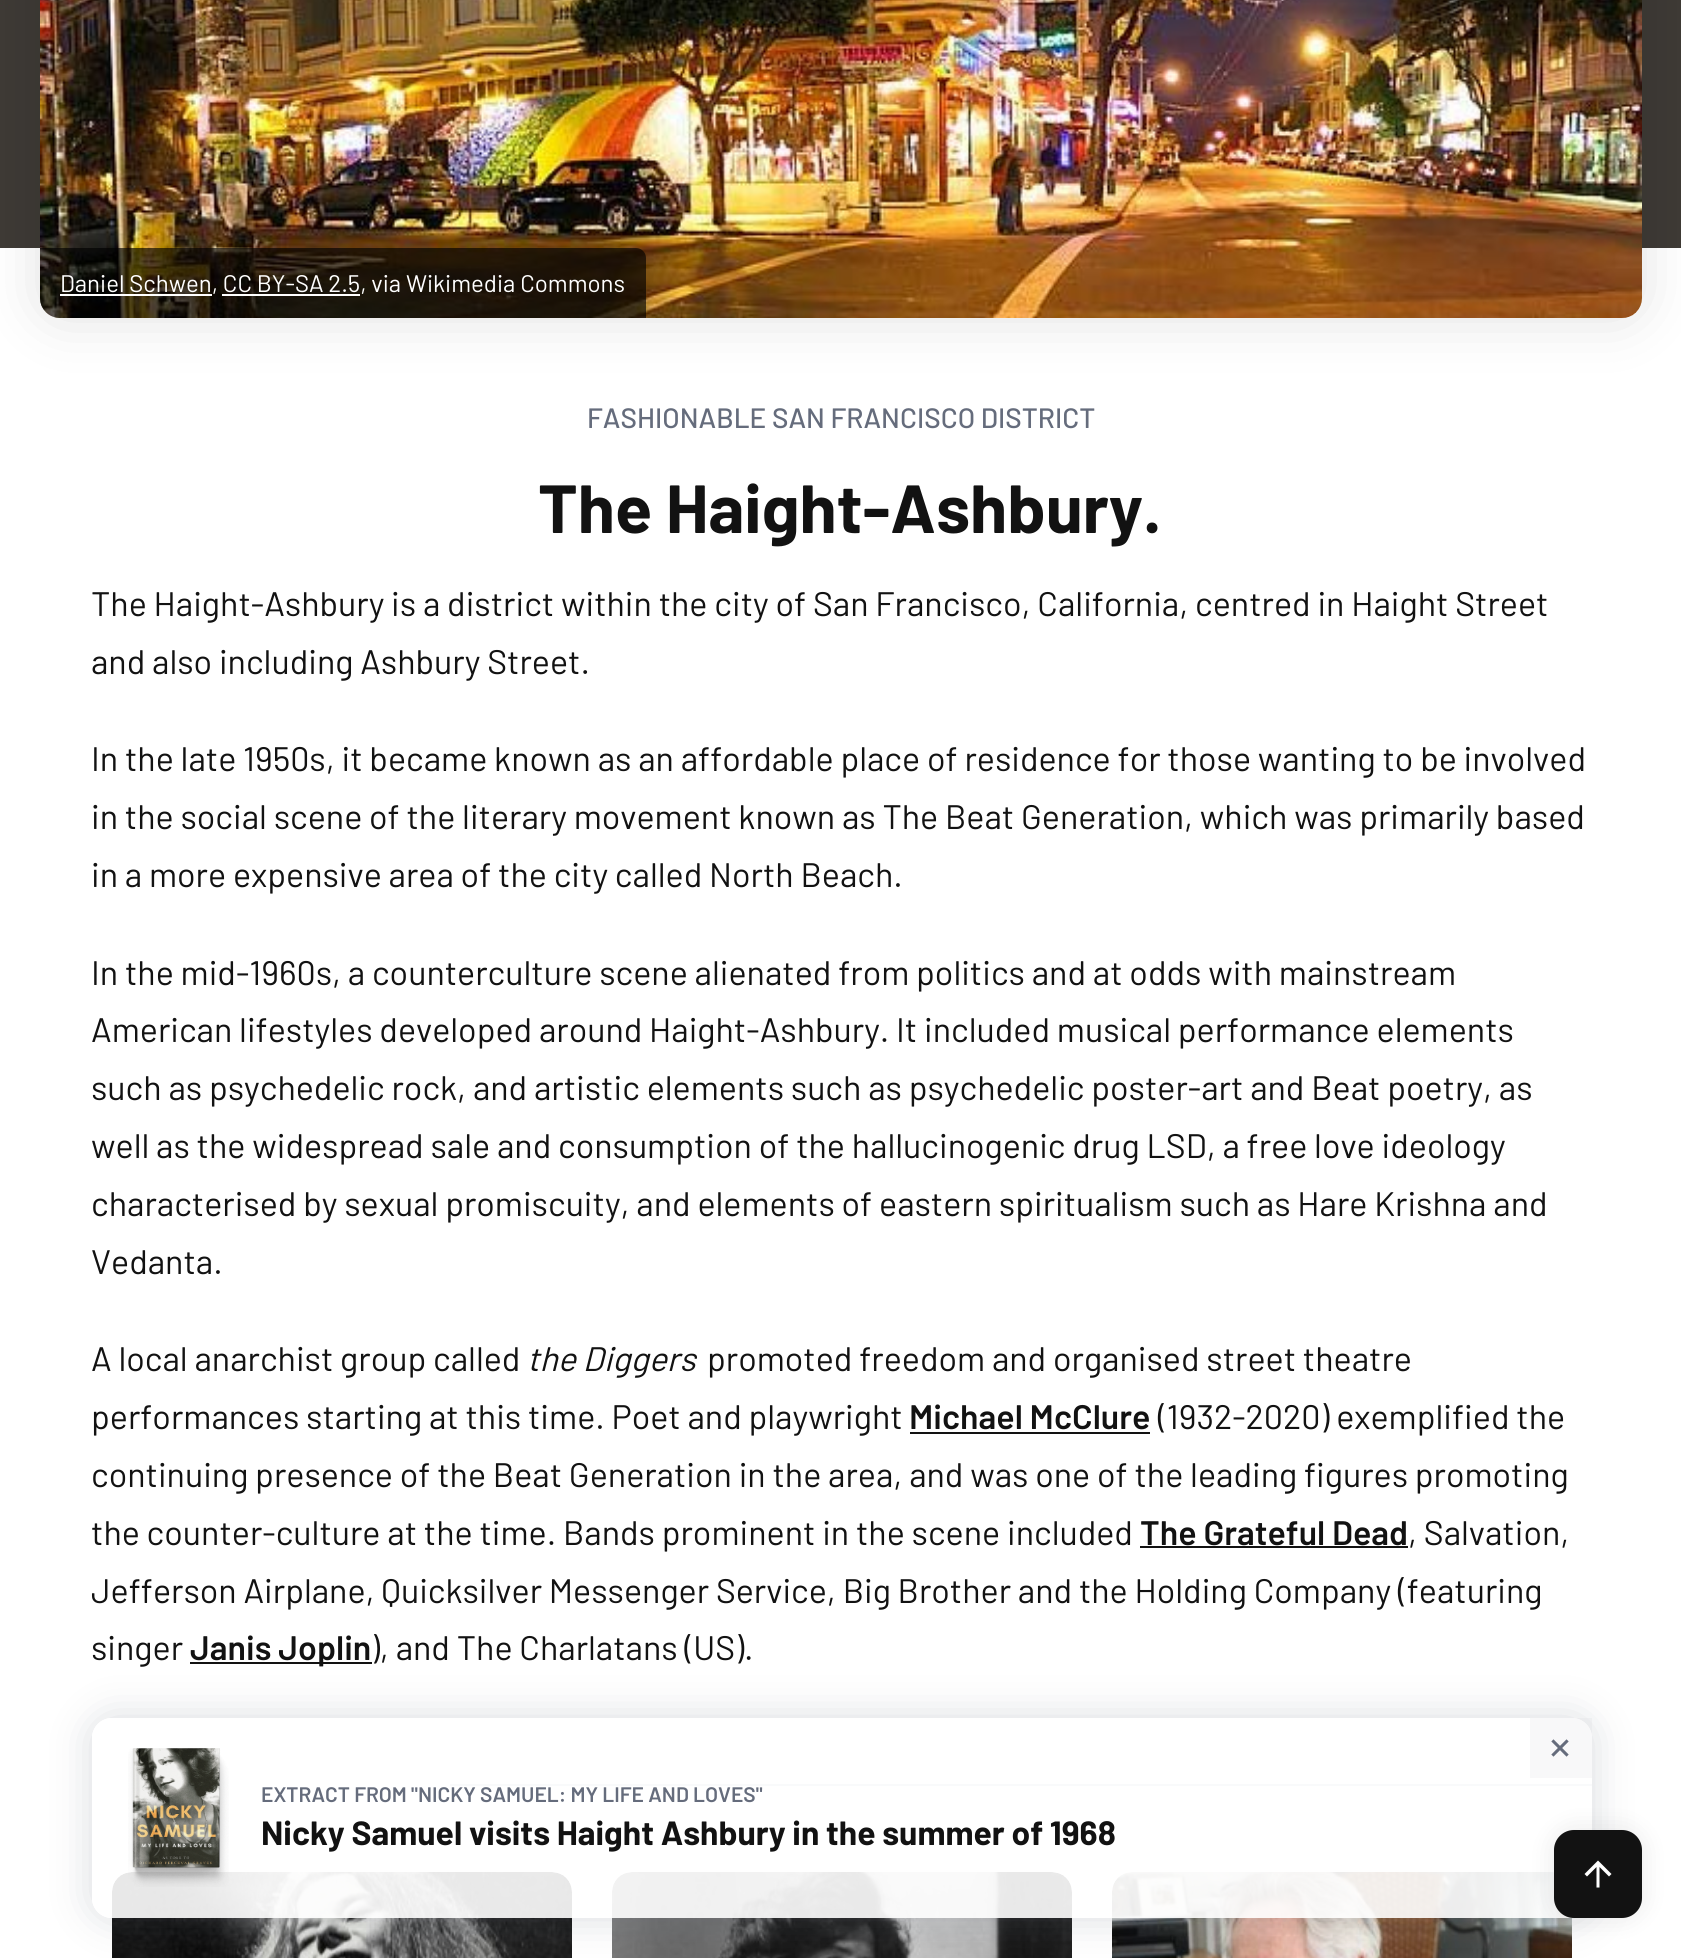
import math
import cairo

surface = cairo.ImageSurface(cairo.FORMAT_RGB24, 1681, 1958)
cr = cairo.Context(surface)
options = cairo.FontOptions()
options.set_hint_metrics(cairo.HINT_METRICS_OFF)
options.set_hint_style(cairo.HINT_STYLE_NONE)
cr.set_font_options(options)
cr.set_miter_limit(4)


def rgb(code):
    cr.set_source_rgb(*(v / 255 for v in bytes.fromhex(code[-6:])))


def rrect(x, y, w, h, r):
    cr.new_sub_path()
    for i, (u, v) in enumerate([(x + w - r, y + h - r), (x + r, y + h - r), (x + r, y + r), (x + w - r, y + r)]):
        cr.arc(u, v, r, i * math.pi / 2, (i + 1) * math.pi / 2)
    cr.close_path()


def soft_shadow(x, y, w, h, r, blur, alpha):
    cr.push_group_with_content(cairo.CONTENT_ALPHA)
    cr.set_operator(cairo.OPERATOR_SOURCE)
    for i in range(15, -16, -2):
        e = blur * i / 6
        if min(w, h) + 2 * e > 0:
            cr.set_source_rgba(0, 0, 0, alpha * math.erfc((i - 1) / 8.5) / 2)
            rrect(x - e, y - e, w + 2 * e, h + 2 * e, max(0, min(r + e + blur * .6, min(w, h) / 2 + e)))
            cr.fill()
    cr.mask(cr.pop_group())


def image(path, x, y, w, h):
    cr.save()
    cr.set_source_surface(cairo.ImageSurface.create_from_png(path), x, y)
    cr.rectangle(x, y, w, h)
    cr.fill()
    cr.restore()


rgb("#ffffff")
cr.paint()
image("img/1.png", 0, 0, 1681, 248)
rgb("#000000")
soft_shadow(40, -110, 1602, 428, 20, 30, 0.12)
image("img/2.png", 40, 0, 1602, 318)
cr.set_source_rgba(0, 0, 0, 0.65)
cr.new_path()
cr.move_to(40, 248)
cr.line_to(636, 248)
cr.curve_to(641.5, 248, 646, 252.5, 646, 258)
cr.line_to(646, 318)
cr.line_to(60, 318)
cr.curve_to(49, 318, 40, 309, 40, 298)
cr.close_path()
cr.fill()
for x, y, w, h, color in [
    (60, 294, 152, 2, "#ffffff"),
    (222, 294, 138, 2, "#ffffff"),
    (910, 1432, 240, 2, "#121212"),
    (1140, 1546, 268, 2, "#121212"),
    (190, 1662, 182, 2, "#121212"),
    (450, 1784, 1142, 2, "#c4ccd5"),
]:
    rgb(color)
    cr.rectangle(x, y, w, h)
    cr.fill()
image("img/3.png", 112, 1872, 460, 86)
image("img/4.png", 612, 1872, 460, 86)
image("img/5.png", 1112, 1872, 460, 86)
cr.save()
cr.set_fill_rule(cairo.FILL_RULE_EVEN_ODD)
cr.new_path()
cr.move_to(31, 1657)
cr.line_to(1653, 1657)
cr.line_to(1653, 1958)
cr.line_to(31, 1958)
cr.close_path()
cr.move_to(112, 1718)
cr.line_to(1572, 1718)
cr.curve_to(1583, 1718, 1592, 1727, 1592, 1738)
cr.line_to(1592, 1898)
cr.curve_to(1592, 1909, 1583, 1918, 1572, 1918)
cr.line_to(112, 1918)
cr.curve_to(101, 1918, 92, 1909, 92, 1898)
cr.line_to(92, 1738)
cr.curve_to(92, 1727, 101, 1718, 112, 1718)
cr.close_path()
cr.clip()
rgb("#656c7c")
soft_shadow(92, 1718, 1500, 200, 20, 20, 0.25)
cr.restore()
cr.set_source_rgba(1, 1, 1, 0.9)
rrect(92, 1718, 1500, 200, 20)
cr.fill()
cr.set_source_rgba(0.396, 0.424, 0.486, 0.05)
cr.rectangle(1530, 1718, 62, 60)
cr.fill()
image("img/6.png", 1551, 1739, 18, 18)
image("img/7.png", 128, 1748, 101, 139)
rgb("#121212")
soft_shadow(1554, 1830, 88, 88, 20, 12, 0.1)
rgb("#121212")
rrect(1554, 1830, 88, 88, 20)
cr.fill()
rgb("#ffffff")
cr.new_path()
cr.move_to(1584.5, 1874)
cr.line_to(1598, 1860.5)
cr.line_to(1611.5, 1874)
cr.line_to(1609, 1876.5)
cr.line_to(1599.5, 1867)
cr.line_to(1599.5, 1887.5)
cr.line_to(1596.5, 1887.5)
cr.line_to(1596.5, 1867)
cr.line_to(1587, 1876.5)
cr.close_path()
cr.fill()
cr.select_font_face("Barlow")
cr.set_font_size(24)
cr.move_to(60, 292)
cr.show_text("Daniel Schwen, CC BY-SA 2.5, via Wikimedia Commons")
cr.select_font_face("Barlow Medium")
cr.set_font_size(28)
rgb("#656c7c")
cr.move_to(587, 428)
cr.show_text("FASHIONABLE SAN FRANCISCO DISTRICT")
cr.select_font_face("Barlow", cairo.FONT_SLANT_NORMAL, cairo.FONT_WEIGHT_BOLD)
cr.set_font_size(68)
rgb("#121212")
cr.move_to(538, 533)
cr.show_text("The Haight-Ashbury.")
cr.select_font_face("Barlow")
cr.set_font_size(34)
for x, y, s in [
    (91, 616, "The Haight-Ashbury is a district within the city of San Francisco, California, centred in Haight Street"),
    (91, 674, "and also including Ashbury Street."),
    (91, 771, "In the late 1950s, it became known as an affordable place of residence for those wanting to be involved"),
    (91, 829, "in the social scene of the literary movement known as The Beat Generation, which was primarily based"),
    (91, 887, "in a more expensive area of the city called North Beach."),
    (91, 985, "In the mid-1960s, a counterculture scene alienated from politics and at odds with mainstream"),
    (91, 1042, "American lifestyles developed around Haight-Ashbury. It included musical performance elements"),
    (91, 1100, "such as psychedelic rock, and artistic elements such as psychedelic poster-art and Beat poetry, as"),
    (91, 1158, "well as the widespread sale and consumption of the hallucinogenic drug LSD, a free love ideology"),
    (91, 1216, "characterised by sexual promiscuity, and elements of eastern spiritualism such as Hare Krishna and"),
    (91, 1274, "Vedanta."),
    (91, 1371, "A local anarchist group called"),
]:
    cr.move_to(x, y)
    cr.show_text(s)
cr.select_font_face("Barlow", cairo.FONT_SLANT_ITALIC)
cr.move_to(527, 1371)
cr.show_text("the Diggers")
cr.select_font_face("Barlow")
cr.move_to(707, 1371)
cr.show_text("promoted freedom and organised street theatre")
cr.move_to(91, 1429)
cr.show_text("performances starting at this time. Poet and playwright")
cr.select_font_face("Barlow SemiBold")
cr.move_to(909, 1429)
cr.show_text("Michael McClure")
cr.select_font_face("Barlow")
for x, y, s in [
    (1158, 1429, "(1932-2020) exemplified the"),
    (91, 1487, "continuing presence of the Beat Generation in the area, and was one of the leading figures promoting"),
    (91, 1545, "the counter-culture at the time. Bands prominent in the scene included"),
]:
    cr.move_to(x, y)
    cr.show_text(s)
cr.select_font_face("Barlow SemiBold")
cr.move_to(1140, 1545)
cr.show_text("The Grateful Dead")
cr.select_font_face("Barlow")
for x, y, s in [
    (1408, 1545, ", Salvation,"),
    (91, 1603, "Jefferson Airplane, Quicksilver Messenger Service, Big Brother and the Holding Company (featuring"),
    (91, 1660, "singer"),
]:
    cr.move_to(x, y)
    cr.show_text(s)
cr.select_font_face("Barlow SemiBold")
cr.move_to(190, 1660)
cr.show_text("Janis Joplin")
cr.select_font_face("Barlow")
cr.move_to(371, 1660)
cr.show_text("), and The Charlatans (US).")
cr.select_font_face("Barlow SemiBold")
cr.set_font_size(21)
rgb("#656c7c")
cr.move_to(261, 1802)
cr.show_text("EXTRACT FROM \"NICKY SAMUEL: MY LIFE AND LOVES\"")
cr.select_font_face("Barlow", cairo.FONT_SLANT_NORMAL, cairo.FONT_WEIGHT_BOLD)
cr.set_font_size(33.6)
rgb("#121212")
cr.move_to(261, 1845)
cr.show_text("Nicky Samuel visits Haight Ashbury in the summer of 1968")
surface.write_to_png("page.png")
